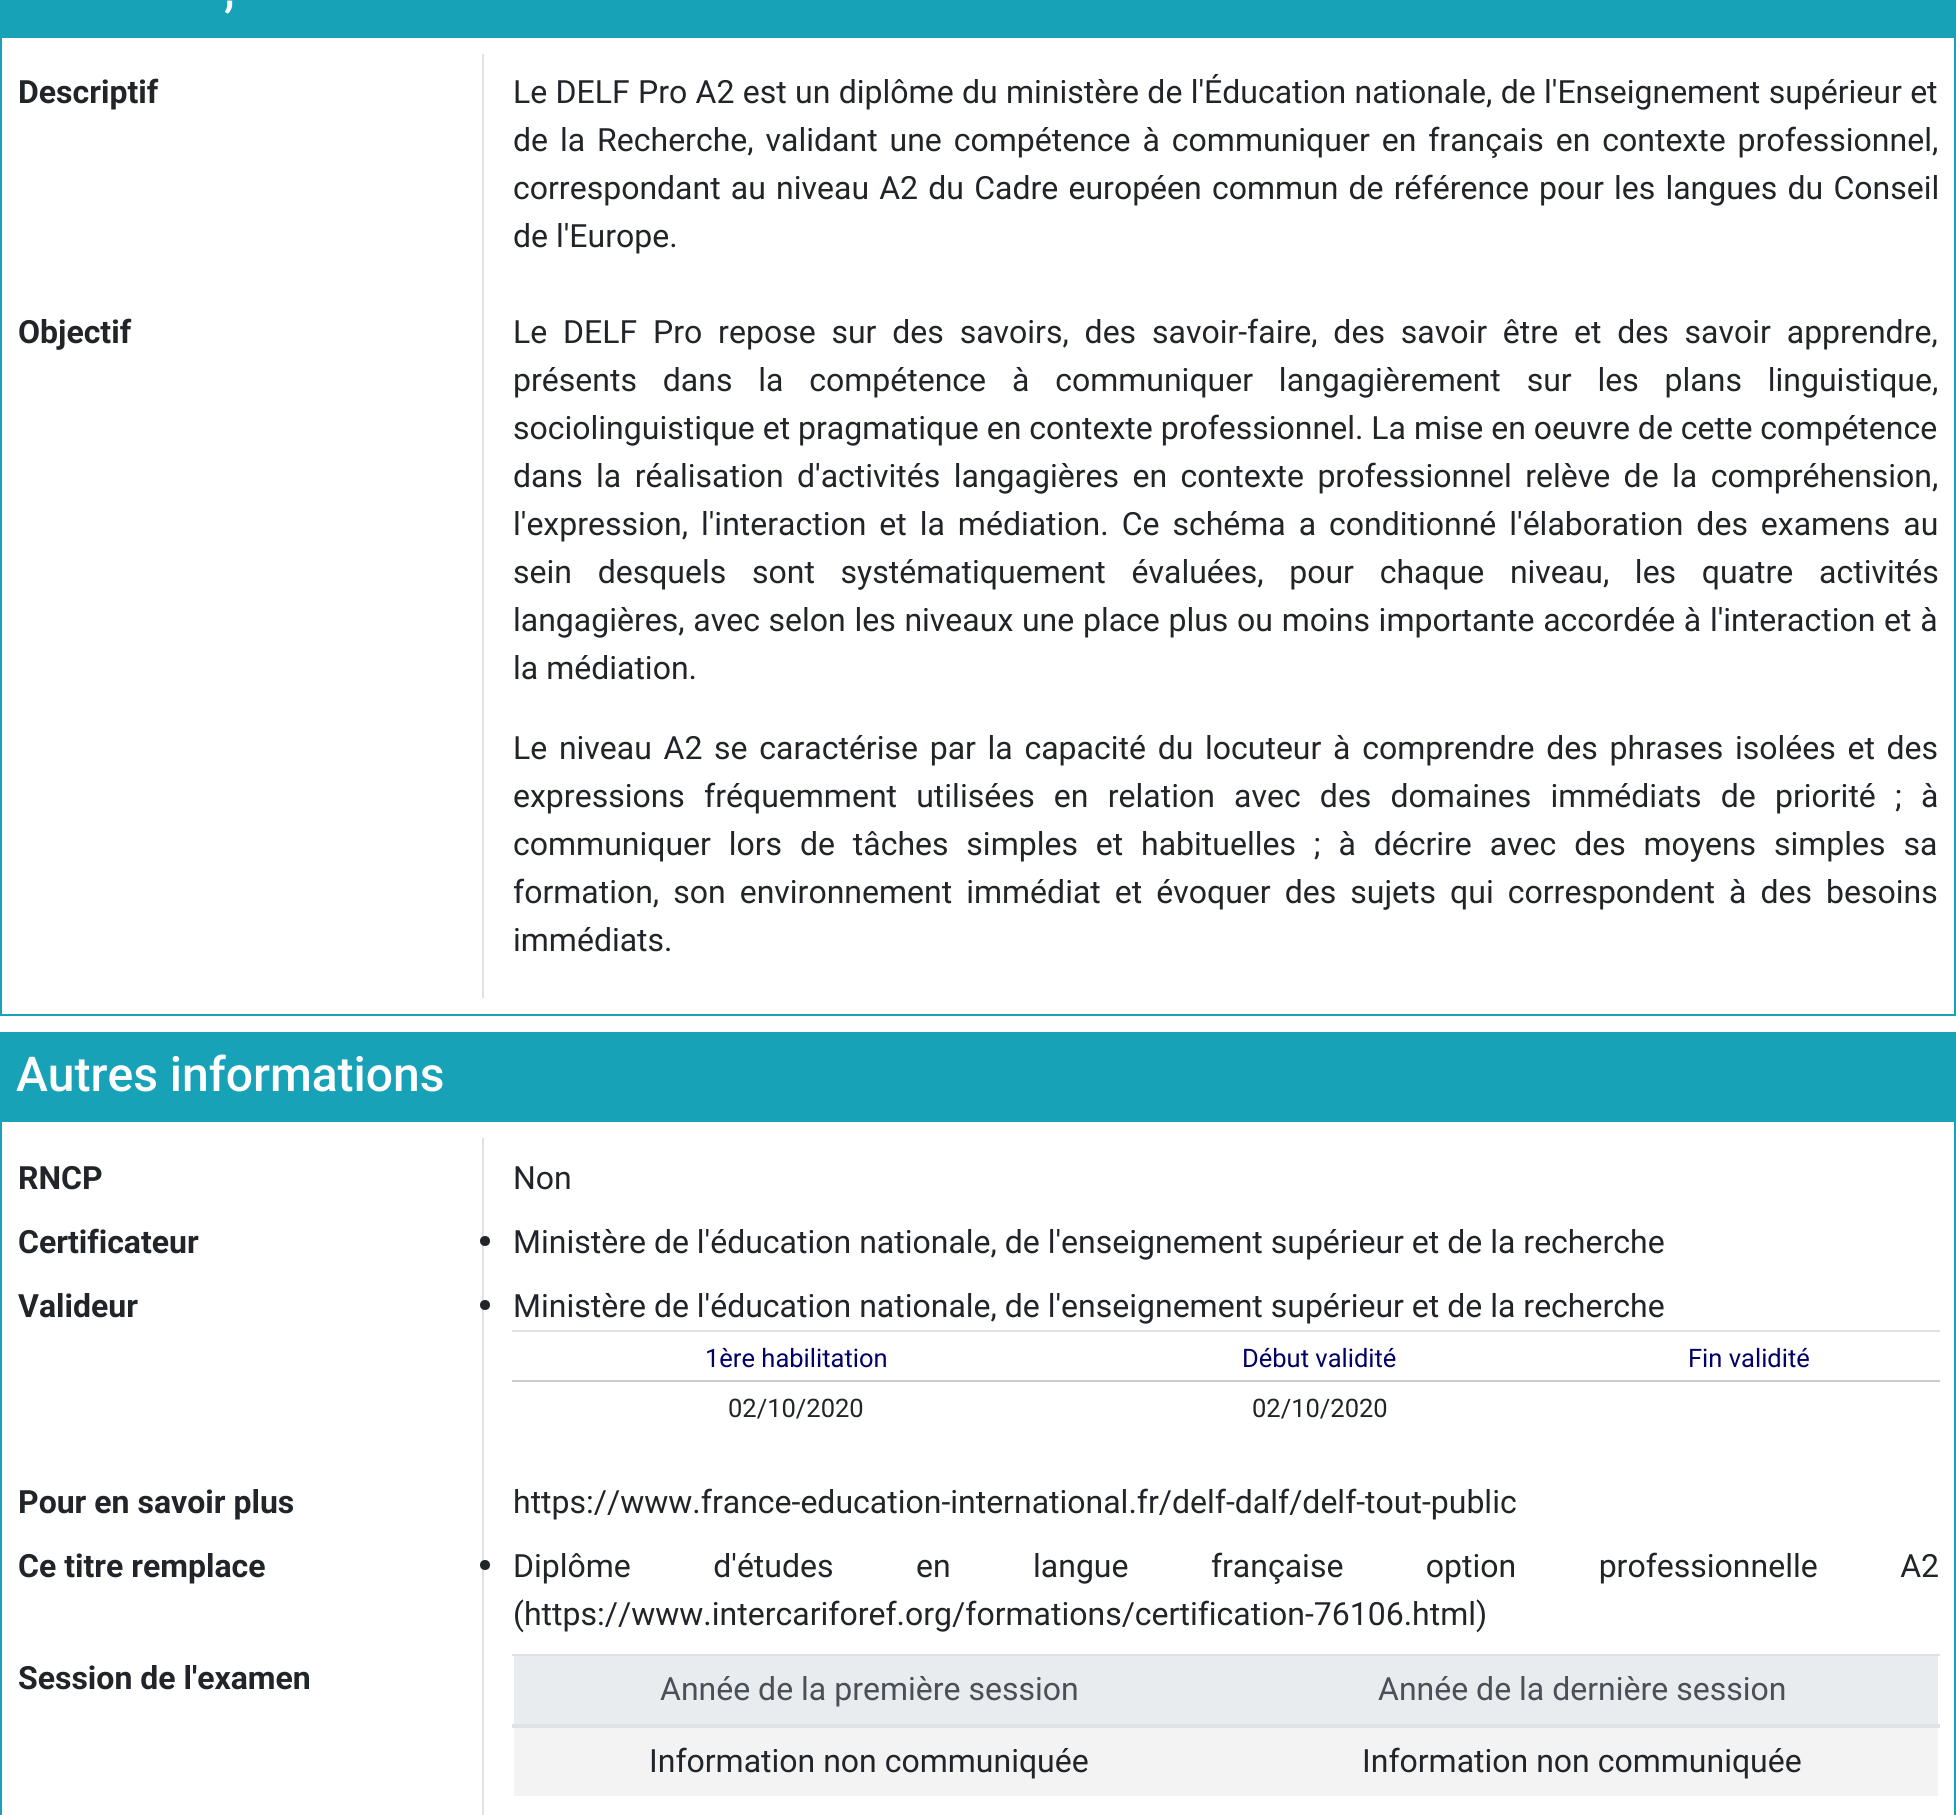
import math
import cairo

surface = cairo.ImageSurface(cairo.FORMAT_RGB24, 1956, 1815)
cr = cairo.Context(surface)
options = cairo.FontOptions()
options.set_hint_metrics(cairo.HINT_METRICS_OFF)
options.set_hint_style(cairo.HINT_STYLE_NONE)
cr.set_font_options(options)
cr.set_miter_limit(4)


def rgb(code):
    cr.set_source_rgb(*(v / 255 for v in bytes.fromhex(code[-6:])))


def tracked(x, y, s, letter, word):
    cr.move_to(x, y)
    for ch in s:
        cr.show_text(ch)
        cr.rel_move_to(letter + word * (ch == ' '), 0)


rgb("#ffffff")
cr.paint()
rgb("#17a2b8")
cr.rectangle(0, 0, 1956, 36)
cr.fill()
cr.rectangle(1, 37, 1954, 978)
cr.stroke()
rgb("#dee2e6")
cr.rectangle(482, 54, 2, 944)
cr.fill()
rgb("#17a2b8")
cr.rectangle(0, 1032, 1956, 88)
cr.fill()
cr.rectangle(1, 1121, 1954, 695)
cr.stroke()
rgb("#dee2e6")
cr.rectangle(482, 1138, 2, 677)
cr.fill()
rgb("#212529")
cr.arc(485, 1241, 5, 0, 2 * math.pi)
cr.fill()
cr.arc(485, 1305, 5, 0, 2 * math.pi)
cr.fill()
rgb("#dee2e6")
cr.rectangle(512, 1330, 1428, 2)
cr.fill()
rgb("#cccccc")
cr.rectangle(512, 1380, 1428, 2)
cr.fill()
rgb("#212529")
cr.arc(485, 1565, 5, 0, 2 * math.pi)
cr.fill()
for x, y, w, h, color in [
    (514, 1656, 1424, 68, "#e9ecef"),
    (512, 1654, 1428, 2, "#dee2e6"),
    (512, 1724, 1428, 4, "#dee2e6"),
    (514, 1728, 1424, 68, "#f3f3f3"),
]:
    rgb(color)
    cr.rectangle(x, y, w, h)
    cr.fill()
cr.select_font_face("Roboto Medium")
cr.set_font_size(48)
rgb("#ffffff")
cr.move_to(224, 6)
cr.show_text(",")
cr.select_font_face("Roboto", cairo.FONT_SLANT_NORMAL, cairo.FONT_WEIGHT_BOLD)
cr.set_font_size(32)
rgb("#212529")
cr.move_to(18, 103)
cr.show_text("Descriptif")
cr.select_font_face("Roboto")
tracked(513, 103, "Le DELF Pro A2 est un diplôme du ministère de l'Éducation nationale, de l'Enseignement supérieur et", 0, 0.4)
tracked(513, 151, "de la Recherche, validant une compétence à communiquer en français en contexte professionnel,", 0, 4)
tracked(513, 199, "correspondant au niveau A2 du Cadre européen commun de référence pour les langues du Conseil", 0, 2.25)
cr.move_to(513, 247)
cr.show_text("de l'Europe.")
cr.select_font_face("Roboto", cairo.FONT_SLANT_NORMAL, cairo.FONT_WEIGHT_BOLD)
cr.move_to(18, 343)
cr.show_text("Objectif")
cr.select_font_face("Roboto")
tracked(513, 343, "Le DELF Pro repose sur des savoirs, des savoir-faire, des savoir être et des savoir apprendre,", 0, 7.9)
tracked(513, 391, "présents dans la compétence à communiquer langagièrement sur les plans linguistique,", 0, 17.9)
cr.move_to(513, 439)
cr.show_text("sociolinguistique et pragmatique en contexte professionnel. La mise en oeuvre de cette compétence")
tracked(513, 487, "dans la réalisation d'activités langagières en contexte professionnel relève de la compréhension,", 0, 5.5)
tracked(513, 535, "l'expression, l'interaction et la médiation. Ce schéma a conditionné l'élaboration des examens au", 0, 5)
tracked(513, 583, "sein desquels sont systématiquement évaluées, pour chaque niveau, les quatre activités", 0, 17.75)
tracked(513, 631, "langagières, avec selon les niveaux une place plus ou moins importante accordée à l'interaction et à", 0, 0.75)
cr.move_to(513, 679)
cr.show_text("la médiation.")
tracked(513, 759, "Le niveau A2 se caractérise par la capacité du locuteur à comprendre des phrases isolées et des", 0, 3.75)
tracked(513, 807, "expressions fréquemment utilisées en relation avec des domaines immédiats de priorité ; à", 0, 11.25)
tracked(513, 855, "communiquer lors de tâches simples et habituelles ; à décrire avec des moyens simples sa", 0, 9.9)
tracked(513, 903, "formation, son environnement immédiat et évoquer des sujets qui correspondent à des besoins", 0, 6.1)
cr.move_to(513, 951)
cr.show_text("immédiats.")
cr.select_font_face("Roboto Medium")
cr.set_font_size(48)
rgb("#ffffff")
cr.move_to(16, 1091)
cr.show_text("Autres informations")
cr.select_font_face("Roboto", cairo.FONT_SLANT_NORMAL, cairo.FONT_WEIGHT_BOLD)
cr.set_font_size(32)
rgb("#212529")
cr.move_to(18, 1189)
cr.show_text("RNCP")
cr.select_font_face("Roboto")
cr.move_to(513, 1189)
cr.show_text("Non")
cr.select_font_face("Roboto", cairo.FONT_SLANT_NORMAL, cairo.FONT_WEIGHT_BOLD)
cr.move_to(18, 1253)
cr.show_text("Certificateur")
cr.select_font_face("Roboto")
cr.move_to(513, 1253)
cr.show_text("Ministère de l'éducation nationale, de l'enseignement supérieur et de la recherche")
cr.select_font_face("Roboto", cairo.FONT_SLANT_NORMAL, cairo.FONT_WEIGHT_BOLD)
cr.move_to(18, 1317)
cr.show_text("Valideur")
cr.select_font_face("Roboto")
cr.move_to(513, 1317)
cr.show_text("Ministère de l'éducation nationale, de l'enseignement supérieur et de la recherche")
cr.set_font_size(25.5)
rgb("#000066")
for x, y, s in [
    (705, 1367, "1ère habilitation"),
    (1242, 1367, "Début validité"),
    (1688, 1367, "Fin validité"),
]:
    cr.move_to(x, y)
    cr.show_text(s)
rgb("#212529")
cr.move_to(728, 1417)
cr.show_text("02/10/2020")
cr.move_to(1252, 1417)
cr.show_text("02/10/2020")
cr.select_font_face("Roboto", cairo.FONT_SLANT_NORMAL, cairo.FONT_WEIGHT_BOLD)
cr.set_font_size(32)
cr.move_to(18, 1513)
cr.show_text("Pour en savoir plus")
cr.select_font_face("Roboto")
cr.move_to(513, 1513)
cr.show_text("https://www.france-education-international.fr/delf-dalf/delf-tout-public")
cr.select_font_face("Roboto", cairo.FONT_SLANT_NORMAL, cairo.FONT_WEIGHT_BOLD)
cr.move_to(18, 1577)
cr.show_text("Ce titre remplace")
cr.select_font_face("Roboto")
tracked(513, 1577, "Diplôme d'études en langue française option professionnelle A2", 0, 74.5)
cr.move_to(513, 1625)
cr.show_text("(https://www.intercariforef.org/formations/certification-76106.html)")
cr.select_font_face("Roboto", cairo.FONT_SLANT_NORMAL, cairo.FONT_WEIGHT_BOLD)
cr.move_to(18, 1689)
cr.show_text("Session de l'examen")
cr.select_font_face("Roboto")
rgb("#495057")
cr.move_to(660, 1700)
cr.show_text("Année de la première session")
cr.move_to(1378, 1700)
cr.show_text("Année de la dernière session")
rgb("#212529")
cr.move_to(649, 1772)
cr.show_text("Information non communiquée")
cr.move_to(1362, 1772)
cr.show_text("Information non communiquée")
surface.write_to_png("page.png")
